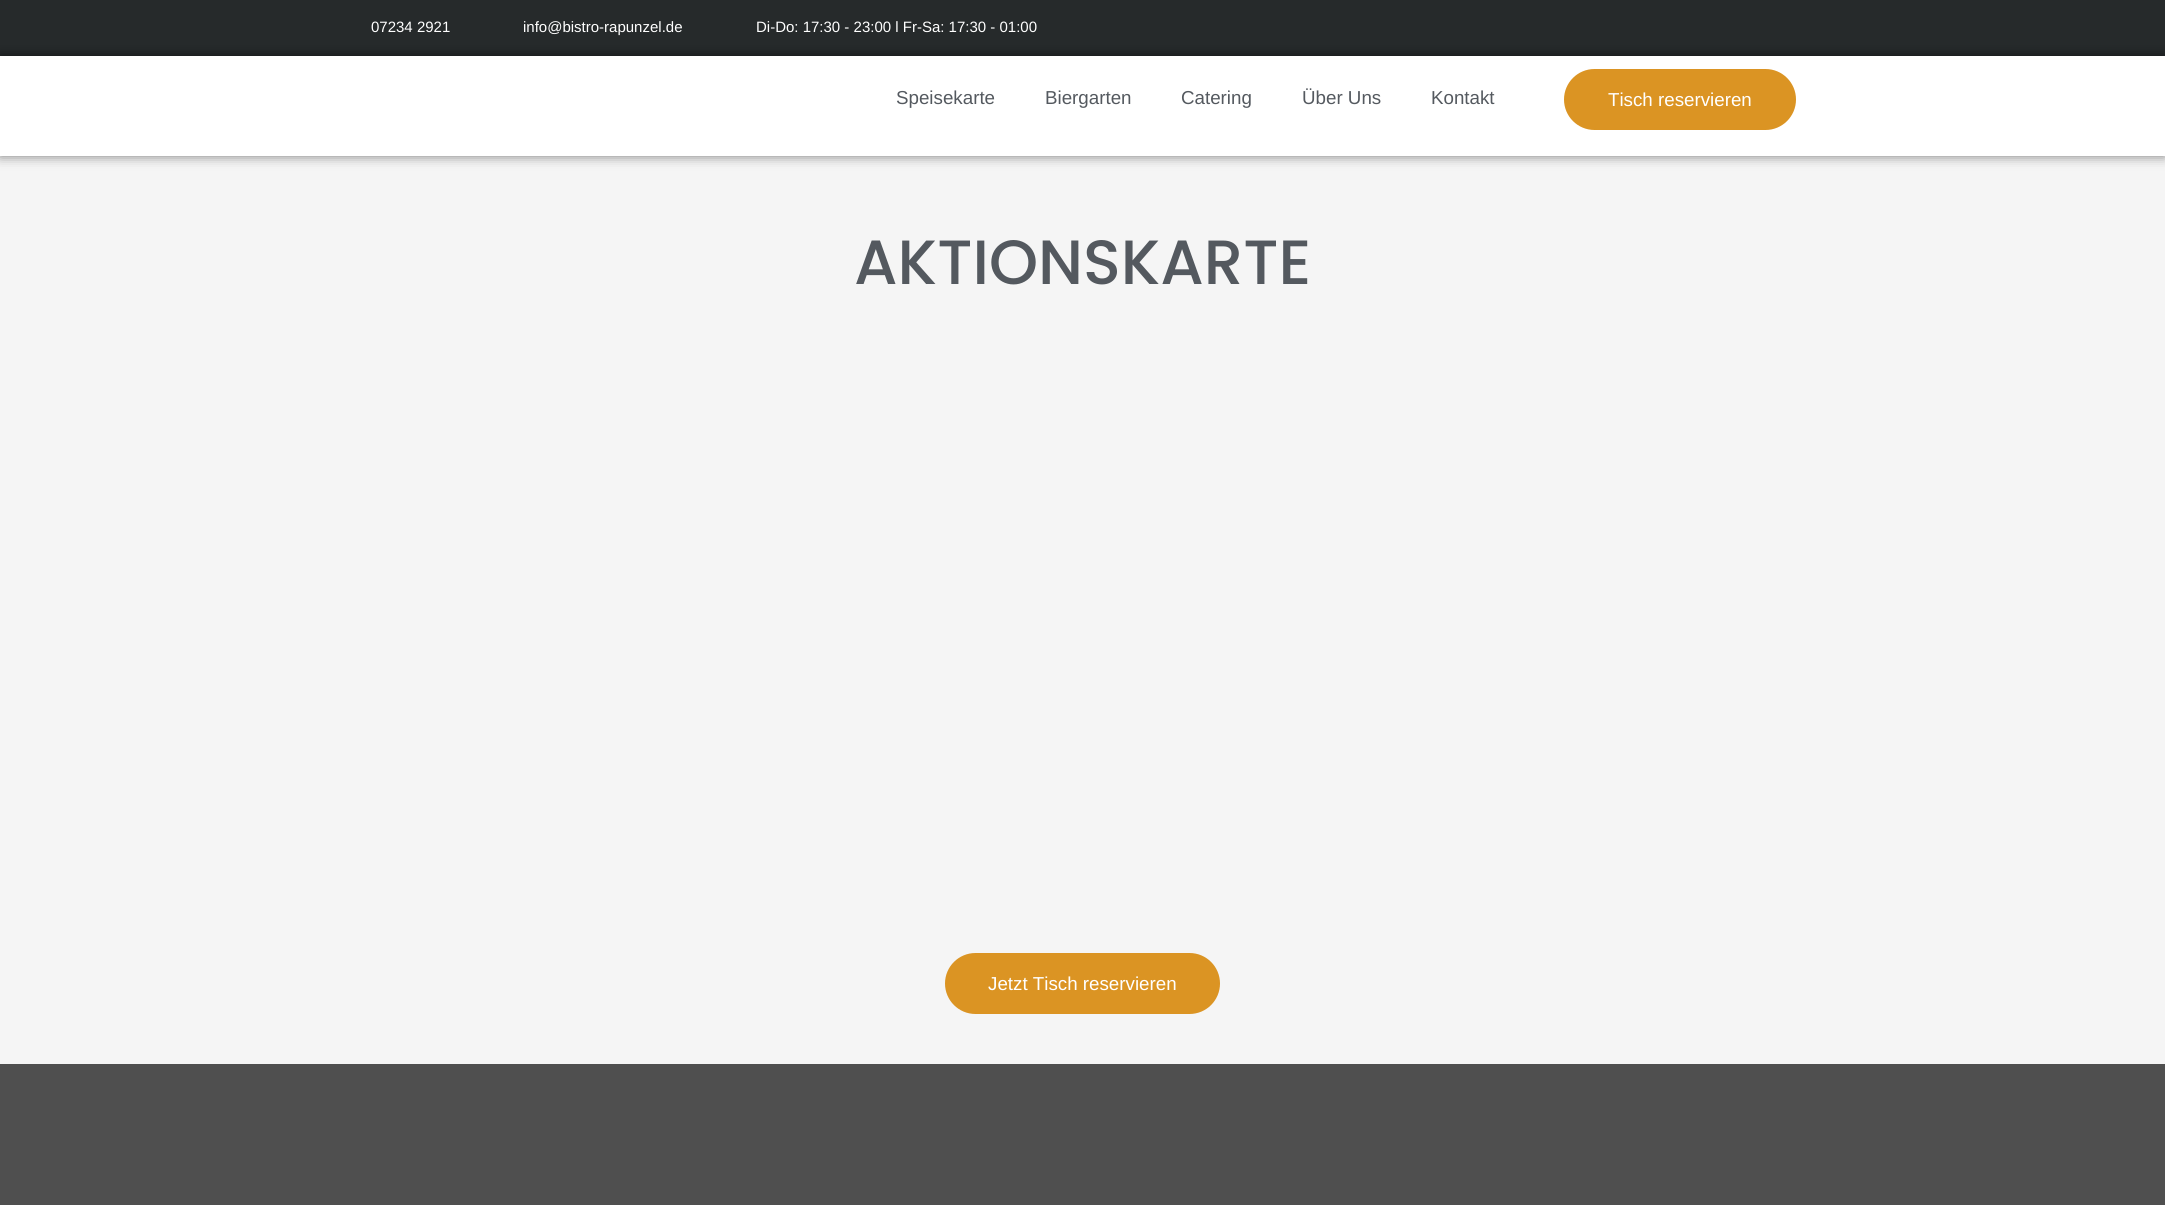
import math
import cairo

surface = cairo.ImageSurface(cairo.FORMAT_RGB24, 2165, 1205)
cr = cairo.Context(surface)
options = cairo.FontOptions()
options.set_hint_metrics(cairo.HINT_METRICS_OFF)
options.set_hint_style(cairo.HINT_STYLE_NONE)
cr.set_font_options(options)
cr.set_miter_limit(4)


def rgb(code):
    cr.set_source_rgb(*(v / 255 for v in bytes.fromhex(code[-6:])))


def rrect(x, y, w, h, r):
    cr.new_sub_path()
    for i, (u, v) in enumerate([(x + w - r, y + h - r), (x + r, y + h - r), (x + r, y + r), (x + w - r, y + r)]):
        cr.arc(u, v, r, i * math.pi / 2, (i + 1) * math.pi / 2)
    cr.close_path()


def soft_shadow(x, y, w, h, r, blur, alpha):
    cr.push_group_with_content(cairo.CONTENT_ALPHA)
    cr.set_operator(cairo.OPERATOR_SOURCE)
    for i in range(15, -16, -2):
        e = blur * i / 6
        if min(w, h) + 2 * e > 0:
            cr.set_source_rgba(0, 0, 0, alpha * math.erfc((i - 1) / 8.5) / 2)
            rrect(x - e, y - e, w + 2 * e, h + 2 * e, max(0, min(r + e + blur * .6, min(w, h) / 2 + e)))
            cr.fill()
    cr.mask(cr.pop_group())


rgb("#f5f5f5")
cr.paint()
rgb("#262a2b")
cr.rectangle(0, 0, 2165, 56)
cr.fill()
cr.save()
cr.set_fill_rule(cairo.FILL_RULE_EVEN_ODD)
cr.new_path()
cr.move_to(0, 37)
cr.line_to(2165, 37)
cr.line_to(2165, 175)
cr.line_to(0, 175)
cr.close_path()
cr.move_to(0, 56)
cr.line_to(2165, 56)
cr.line_to(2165, 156)
cr.line_to(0, 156)
cr.close_path()
cr.clip()
rgb("#000000")
soft_shadow(0, 56, 2165, 100, 0, 6, 0.5)
cr.restore()
cr.set_source_rgba(1, 1, 1, 0.97)
cr.rectangle(0, 56, 2165, 100)
cr.fill()
rgb("#db9423")
rrect(1564, 69, 232, 61, 30.5)
cr.fill()
rrect(945, 953, 275, 61, 30.5)
cr.fill()
rgb("#4f4f4f")
cr.rectangle(0, 1064, 2165, 141)
cr.fill()
cr.select_font_face("Liberation Sans")
cr.set_font_size(15)
rgb("#ffffff")
for x, y, s in [
    (371, 32, "07234 2921"),
    (523, 32, "info@bistro-rapunzel.de"),
    (756, 32, "Di-Do: 17:30 - 23:00 l Fr-Sa: 17:30 - 01:00"),
]:
    cr.move_to(x, y)
    cr.show_text(s)
cr.set_font_size(18.75)
rgb("#54595f")
for x, y, s in [
    (896, 104, "Speisekarte"),
    (1045, 104, "Biergarten"),
    (1181, 104, "Catering"),
    (1302, 104, "Über Uns"),
    (1431, 104, "Kontakt"),
]:
    cr.move_to(x, y)
    cr.show_text(s)
rgb("#ffffff")
cr.move_to(1608, 106)
cr.show_text("Tisch reservieren")
cr.select_font_face("Poppins Medium")
cr.set_font_size(62.5)
rgb("#54595f")
cr.move_to(854, 284)
cr.show_text("AKTIONSKARTE")
cr.select_font_face("Liberation Sans")
cr.set_font_size(18.75)
rgb("#ffffff")
cr.move_to(988, 990)
cr.show_text("Jetzt Tisch reservieren")
surface.write_to_png("page.png")
